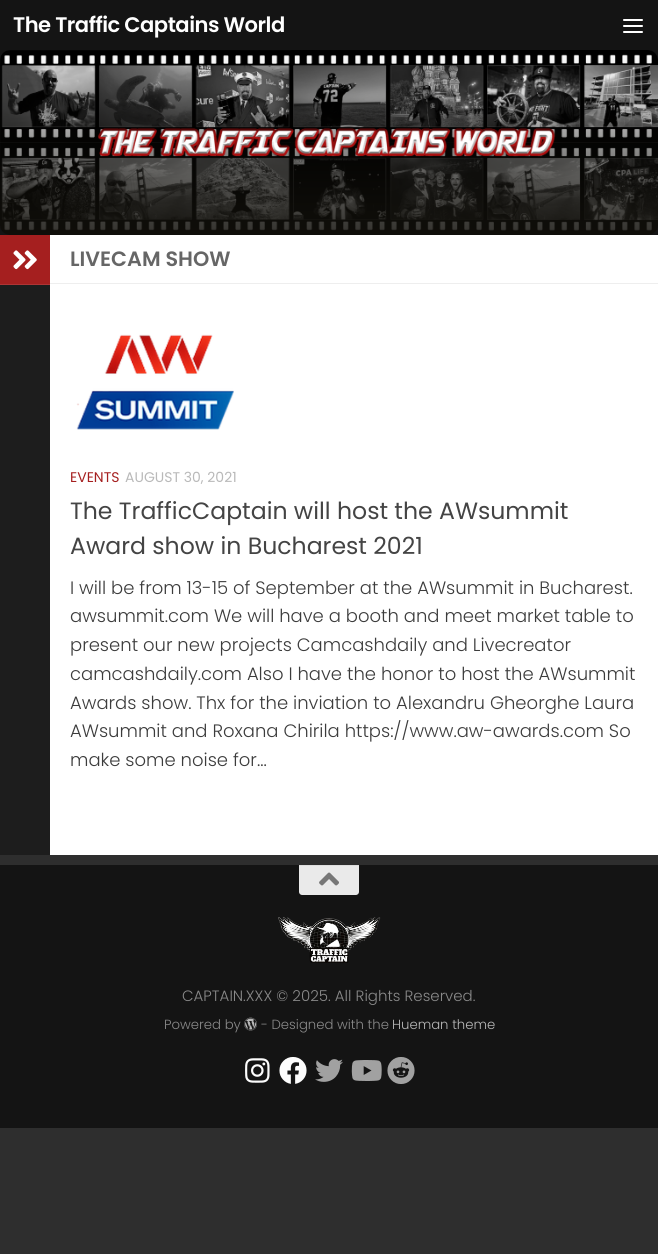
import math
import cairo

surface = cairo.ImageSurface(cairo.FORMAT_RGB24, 658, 1254)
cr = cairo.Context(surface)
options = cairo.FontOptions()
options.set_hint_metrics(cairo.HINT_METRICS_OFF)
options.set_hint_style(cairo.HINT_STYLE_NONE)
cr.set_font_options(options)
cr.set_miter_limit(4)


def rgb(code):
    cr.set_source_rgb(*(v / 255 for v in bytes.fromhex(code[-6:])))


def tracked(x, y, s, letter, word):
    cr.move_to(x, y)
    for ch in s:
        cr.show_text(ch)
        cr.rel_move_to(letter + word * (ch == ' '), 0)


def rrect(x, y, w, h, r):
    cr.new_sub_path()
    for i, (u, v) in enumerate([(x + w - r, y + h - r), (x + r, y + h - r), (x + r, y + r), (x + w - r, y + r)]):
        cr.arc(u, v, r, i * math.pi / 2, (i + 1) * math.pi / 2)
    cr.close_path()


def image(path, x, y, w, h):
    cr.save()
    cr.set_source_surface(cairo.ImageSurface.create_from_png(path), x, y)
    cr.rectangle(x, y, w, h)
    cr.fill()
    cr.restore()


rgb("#2e2e2e")
cr.paint()
rgb("#141414")
cr.rectangle(0, 0, 658, 235)
cr.fill()
rgb("#ffffff")
rrect(623, 19, 20, 2, 1)
cr.fill()
rrect(623, 25, 20, 2, 1)
cr.fill()
rrect(623, 31, 20, 2, 1)
cr.fill()
image("img/1.png", 0, 50, 658, 185)
for x, y, w, h, color in [
    (50, 235, 608, 620, "#ffffff"),
    (0, 285, 50, 570, "#1d1d1d"),
    (0, 235, 50, 49, "#a51f1f"),
    (0, 284, 50, 1, "#ae3535"),
]:
    rgb(color)
    cr.rectangle(x, y, w, h)
    cr.fill()
image("img/2.png", 13, 250, 24, 20)
rgb("#eeeeee")
cr.rectangle(50, 283, 608, 1)
cr.fill()
image("img/3.png", 76, 334, 158, 96)
rgb("#141414")
cr.rectangle(0, 865, 658, 263)
cr.fill()
rgb("#eaeaea")
cr.new_path()
cr.move_to(299, 865)
cr.line_to(359, 865)
cr.line_to(359, 892)
cr.curve_to(359, 893.5, 357.5, 895, 356, 895)
cr.line_to(302, 895)
cr.curve_to(300.5, 895, 299, 893.5, 299, 892)
cr.close_path()
cr.fill()
rgb("#dedede")
cr.rectangle(299, 865, 60, 1)
cr.fill()
image("img/4.png", 319, 872, 20, 14)
image("img/5.png", 278, 917, 103, 46)
image("img/6.png", 244, 1017, 13, 14)
image("img/7.png", 245, 1058, 25, 25)
image("img/8.png", 279, 1057, 28, 27)
image("img/9.png", 315, 1059, 28, 23)
image("img/10.png", 351, 1060, 31, 21)
image("img/11.png", 387, 1057, 28, 27)
cr.select_font_face("Poppins SemiBold")
cr.set_font_size(21.1)
rgb("#ffffff")
tracked(13, 32, "The Traffic Captains World", -0.5, 0)
cr.set_font_size(20.75)
rgb("#666666")
cr.move_to(70, 266)
cr.show_text("LIVECAM SHOW")
cr.select_font_face("Poppins")
cr.set_font_size(14)
rgb("#a51f1f")
cr.move_to(70, 482)
cr.show_text("EVENTS")
rgb("#b9b9b9")
cr.move_to(125, 482)
cr.show_text("AUGUST 30, 2021")
cr.set_font_size(23.6)
rgb("#444444")
cr.move_to(70, 519)
cr.show_text("The TrafficCaptain will host the AWsummit")
cr.move_to(70, 554)
cr.show_text("Award show in Bucharest 2021")
cr.select_font_face("Poppins Light")
cr.set_font_size(18)
rgb("#3c3c3c")
for x, y, s in [
    (70, 594, "I will be from 13-15 of September at the AWsummit in Bucharest."),
    (70, 622, "awsummit.com We will have a booth and meet market table to"),
    (70, 651, "present our new projects Camcashdaily and Livecreator"),
    (70, 680, "camcashdaily.com Also I have the honor to host the AWsummit"),
    (70, 709, "Awards show. Thx for the inviation to Alexandru Gheorghe Laura"),
    (70, 737, "AWsummit and Roxana Chirila https://www.aw-awards.com So"),
    (70, 766, "make some noise for..."),
]:
    cr.move_to(x, y)
    cr.show_text(s)
cr.set_font_size(15)
rgb("#8a8a8a")
cr.move_to(182, 1001)
cr.show_text("CAPTAIN.XXX © 2025. All Rights Reserved.")
cr.set_font_size(13.25)
cr.move_to(164, 1029)
cr.show_text("Powered by")
cr.move_to(261, 1029)
cr.show_text("- Designed with the")
rgb("#b9b9b9")
cr.move_to(392, 1029)
cr.show_text("Hueman theme")
surface.write_to_png("page.png")
